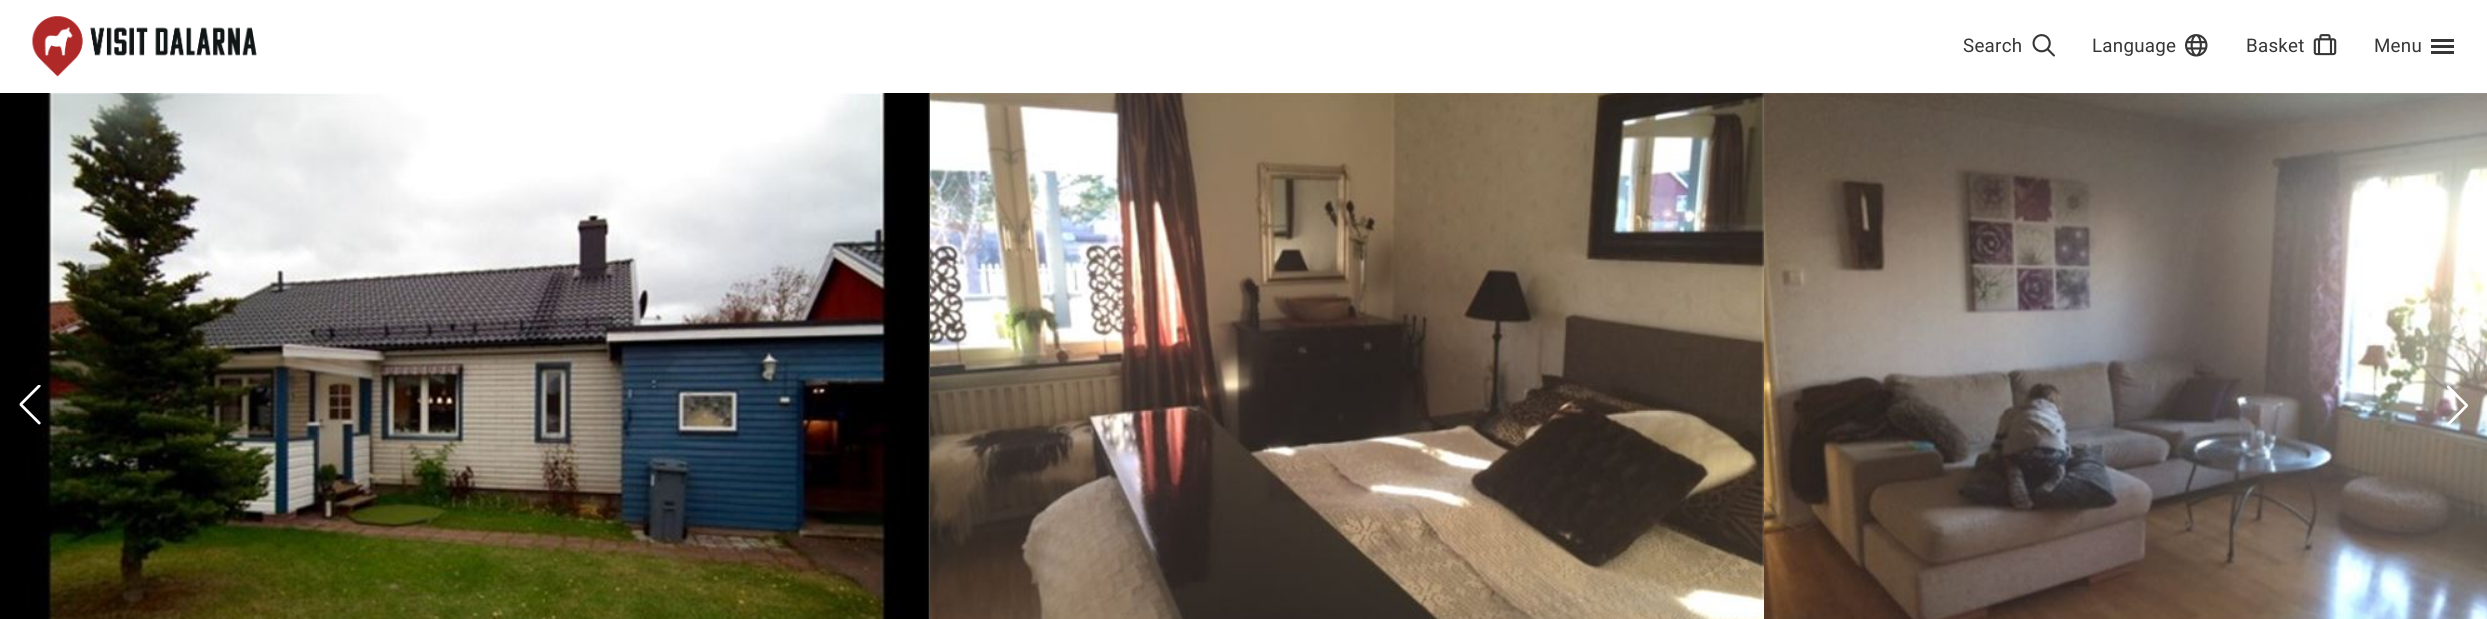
import math
import cairo

surface = cairo.ImageSurface(cairo.FORMAT_RGB24, 2487, 619)
cr = cairo.Context(surface)
options = cairo.FontOptions()
options.set_hint_metrics(cairo.HINT_METRICS_OFF)
options.set_hint_style(cairo.HINT_STYLE_NONE)
cr.set_font_options(options)
cr.set_miter_limit(4)


def rgb(code):
    cr.set_source_rgb(*(v / 255 for v in bytes.fromhex(code[-6:])))


def tracked(x, y, s, letter, word):
    cr.move_to(x, y)
    for ch in s:
        cr.show_text(ch)
        cr.rel_move_to(letter + word * (ch == ' '), 0)


def image(path, x, y, w, h):
    cr.save()
    cr.set_source_surface(cairo.ImageSurface.create_from_png(path), x, y)
    cr.rectangle(x, y, w, h)
    cr.fill()
    cr.restore()


rgb("#ffffff")
cr.paint()
image("img/1.png", 32, 16, 225, 61)
image("img/2.png", 2032, 34, 23, 23)
image("img/3.png", 2185, 34, 23, 23)
image("img/4.png", 2313, 34, 24, 22)
for x, y, w, h, color in [
    (2431, 39, 23, 3, "#373636"),
    (2431, 45, 23, 3, "#373636"),
    (2431, 51, 23, 3, "#373636"),
]:
    rgb(color)
    cr.rectangle(x, y, w, h)
    cr.fill()
image("img/5.png", 0, 93, 930, 526)
image("img/6.png", 930, 93, 834, 526)
image("img/7.png", 1764, 93, 723, 526)
image("img/8.png", 19, 385, 22, 40)
image("img/9.png", 2446, 385, 22, 40)
cr.select_font_face("Roboto")
cr.set_font_size(18.75)
for x, y, s in [
    (1963, 52, "Search"),
    (2092, 52, "Language"),
    (2246, 52, "Basket"),
    (2374, 52, "Menu"),
]:
    tracked(x, y, s, 0.25, 0)
surface.write_to_png("page.png")
